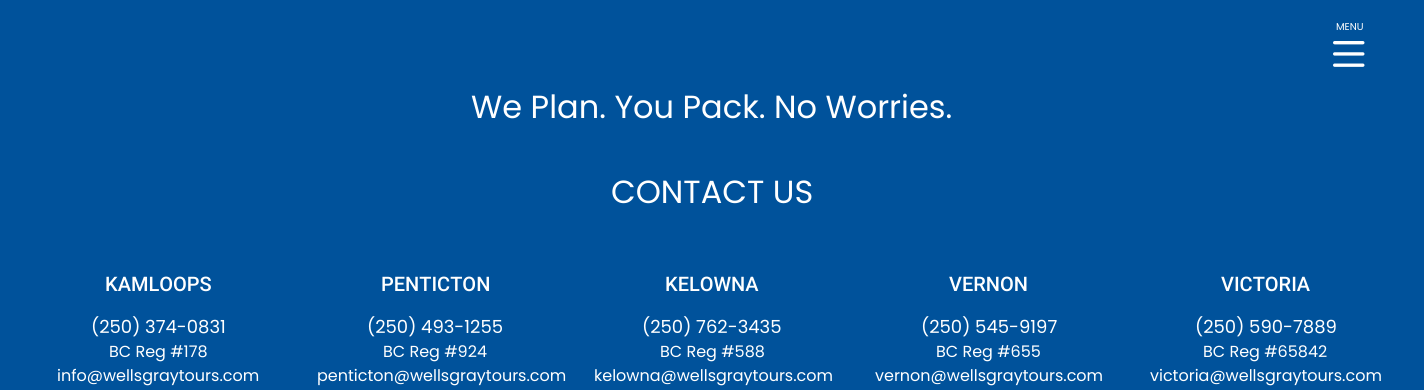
import math
import cairo

surface = cairo.ImageSurface(cairo.FORMAT_RGB24, 1424, 390)
cr = cairo.Context(surface)
options = cairo.FontOptions()
options.set_hint_metrics(cairo.HINT_METRICS_OFF)
options.set_hint_style(cairo.HINT_STYLE_NONE)
cr.set_font_options(options)
cr.set_miter_limit(4)


def rgb(code):
    cr.set_source_rgb(*(v / 255 for v in bytes.fromhex(code[-6:])))


def image(path, x, y, w, h):
    cr.save()
    cr.set_source_surface(cairo.ImageSurface.create_from_png(path), x, y)
    cr.rectangle(x, y, w, h)
    cr.fill()
    cr.restore()


rgb("#00529b")
cr.paint()
image("img/1.png", 1333, 41, 32, 26)
cr.select_font_face("Poppins")
cr.set_font_size(10)
rgb("#ffffff")
cr.move_to(1336, 30)
cr.show_text("MENU")
cr.set_font_size(32)
cr.move_to(471, 118)
cr.show_text("We Plan. You Pack. No Worries.")
cr.move_to(611, 203)
cr.show_text("CONTACT US")
cr.select_font_face("Roboto Medium")
cr.set_font_size(20)
cr.move_to(105, 291)
cr.show_text("KAMLOOPS")
cr.select_font_face("Poppins")
cr.set_font_size(18)
cr.move_to(91, 333)
cr.show_text("(250) 374-0831")
cr.set_font_size(16)
cr.move_to(109, 357)
cr.show_text("BC Reg #178")
cr.move_to(57, 381)
cr.show_text("info@wellsgraytours.com")
cr.select_font_face("Roboto Medium")
cr.set_font_size(20)
cr.move_to(381, 291)
cr.show_text("PENTICTON")
cr.select_font_face("Poppins")
cr.set_font_size(18)
cr.move_to(367, 333)
cr.show_text("(250) 493-1255")
cr.set_font_size(16)
cr.move_to(383, 357)
cr.show_text("BC Reg #924")
cr.move_to(317, 381)
cr.show_text("penticton@wellsgraytours.com")
cr.select_font_face("Roboto Medium")
cr.set_font_size(20)
cr.move_to(665, 291)
cr.show_text("KELOWNA")
cr.select_font_face("Poppins")
cr.set_font_size(18)
cr.move_to(642, 333)
cr.show_text("(250) 762-3435")
cr.set_font_size(16)
cr.move_to(660, 357)
cr.show_text("BC Reg #588")
cr.move_to(594, 381)
cr.show_text("kelowna@wellsgraytours.com")
cr.select_font_face("Roboto Medium")
cr.set_font_size(20)
cr.move_to(949, 291)
cr.show_text("VERNON")
cr.select_font_face("Poppins")
cr.set_font_size(18)
cr.move_to(921, 333)
cr.show_text("(250) 545-9197")
cr.set_font_size(16)
cr.move_to(936, 357)
cr.show_text("BC Reg #655")
cr.move_to(875, 381)
cr.show_text("vernon@wellsgraytours.com")
cr.select_font_face("Roboto Medium")
cr.set_font_size(20)
cr.move_to(1221, 291)
cr.show_text("VICTORIA")
cr.select_font_face("Poppins")
cr.set_font_size(18)
cr.move_to(1195, 333)
cr.show_text("(250) 590-7889")
cr.set_font_size(16)
cr.move_to(1203, 357)
cr.show_text("BC Reg #65842")
cr.move_to(1150, 381)
cr.show_text("victoria@wellsgraytours.com")
surface.write_to_png("page.png")
